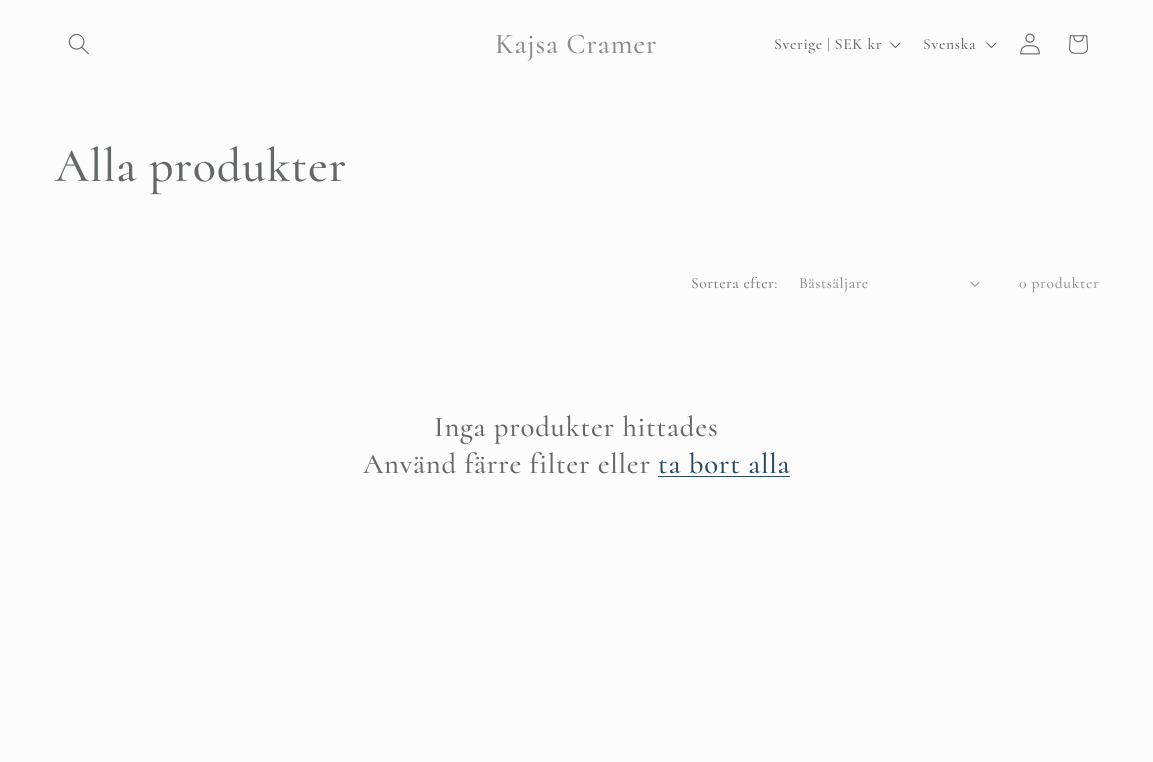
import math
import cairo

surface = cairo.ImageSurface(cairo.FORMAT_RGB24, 1153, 762)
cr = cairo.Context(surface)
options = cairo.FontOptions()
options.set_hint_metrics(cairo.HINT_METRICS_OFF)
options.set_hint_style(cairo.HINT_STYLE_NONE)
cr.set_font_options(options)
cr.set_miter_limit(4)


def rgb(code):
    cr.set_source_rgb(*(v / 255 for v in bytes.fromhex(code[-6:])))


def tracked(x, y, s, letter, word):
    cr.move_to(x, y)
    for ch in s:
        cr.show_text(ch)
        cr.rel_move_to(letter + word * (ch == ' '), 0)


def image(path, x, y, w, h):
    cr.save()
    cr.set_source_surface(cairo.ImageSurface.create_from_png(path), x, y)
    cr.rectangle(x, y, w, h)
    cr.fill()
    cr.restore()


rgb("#fcfcfc")
cr.paint()
image("img/1.png", 68, 33, 21, 22)
image("img/2.png", 890, 42, 11, 6)
image("img/2.png", 986, 42, 11, 6)
image("img/3.png", 1020, 33, 20, 22)
image("img/4.png", 1069, 35, 20, 19)
image("img/5.png", 970, 281, 10, 6)
rgb("#2a4b61")
cr.rectangle(658, 476, 132, 1)
cr.fill()
cr.select_font_face("Cormorant Medium")
cr.set_font_size(28.75)
rgb("#8b8d8e")
tracked(495, 53, "Kajsa Cramer", 0.75, 0)
cr.set_font_size(15.5)
rgb("#656869")
tracked(774, 49, "Sverige | SEK kr", 0.7, 0)
tracked(923, 49, "Svenska", 0.7, 0)
cr.set_font_size(48)
tracked(55, 181, "Alla produkter", 0.75, 0)
cr.set_font_size(15.5)
rgb("#7c7e7f")
tracked(691, 288, "Sortera efter:", 0.5, 0)
rgb("#8b8d8e")
tracked(799, 288, "Bästsäljare", 0.5, 0)
rgb("#929495")
tracked(1019, 288, "0 produkter", 0.7, 0)
cr.set_font_size(28.75)
rgb("#656869")
tracked(434, 436, "Inga produkter hittades", 0.75, 0)
tracked(363, 473, "Använd färre filter eller", 0.75, 0)
rgb("#2a4b61")
tracked(658, 473, "ta bort alla", 0.75, 0)
surface.write_to_png("page.png")
